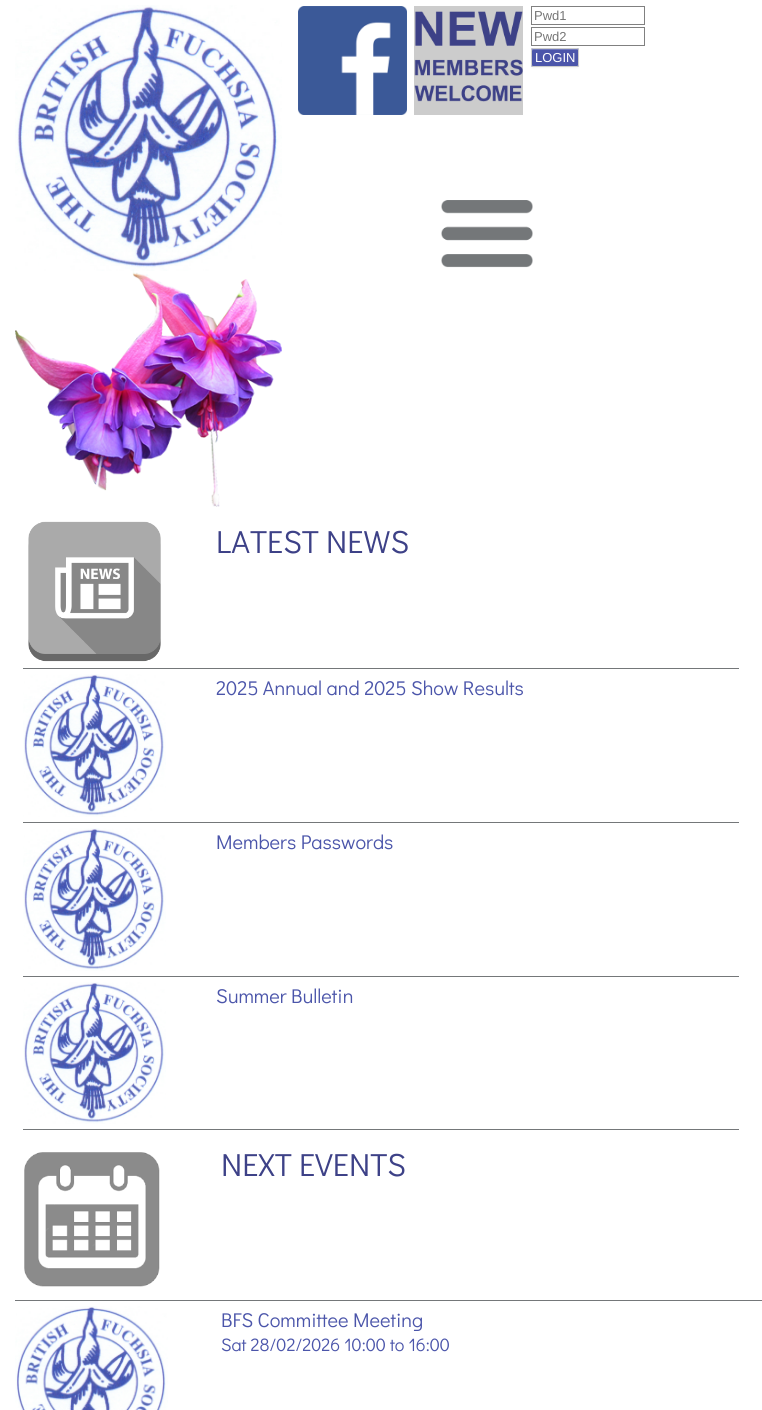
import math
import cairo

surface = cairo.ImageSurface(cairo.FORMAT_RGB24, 762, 1410)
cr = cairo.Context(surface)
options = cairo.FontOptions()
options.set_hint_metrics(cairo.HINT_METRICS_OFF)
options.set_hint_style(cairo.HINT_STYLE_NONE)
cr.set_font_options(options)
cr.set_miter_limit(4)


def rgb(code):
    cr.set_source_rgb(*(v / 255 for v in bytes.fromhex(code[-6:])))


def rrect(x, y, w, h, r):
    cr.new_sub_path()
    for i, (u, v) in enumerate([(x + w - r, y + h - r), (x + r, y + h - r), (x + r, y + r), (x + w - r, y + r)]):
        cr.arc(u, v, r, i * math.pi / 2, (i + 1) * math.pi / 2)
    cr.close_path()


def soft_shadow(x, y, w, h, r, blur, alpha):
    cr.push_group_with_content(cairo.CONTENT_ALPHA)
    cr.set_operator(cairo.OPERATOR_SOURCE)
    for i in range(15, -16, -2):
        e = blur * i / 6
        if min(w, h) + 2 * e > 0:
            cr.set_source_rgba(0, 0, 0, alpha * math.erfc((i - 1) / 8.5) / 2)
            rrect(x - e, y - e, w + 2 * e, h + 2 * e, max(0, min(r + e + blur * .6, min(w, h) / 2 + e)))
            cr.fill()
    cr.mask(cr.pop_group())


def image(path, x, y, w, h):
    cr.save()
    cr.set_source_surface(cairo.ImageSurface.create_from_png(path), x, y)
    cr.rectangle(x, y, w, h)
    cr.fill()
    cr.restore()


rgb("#ffffff")
cr.paint()
image("img/1.png", 15, 5, 267, 266)
image("img/2.png", 15, 271, 267, 236)
image("img/3.png", 298, 6, 109, 109)
image("img/4.png", 414, 6, 109, 109)
cr.rectangle(531.5, 6.5, 113, 18)
rgb("#808080")
cr.set_line_width(1)
cr.stroke()
cr.rectangle(531.5, 27.5, 113, 18)
cr.stroke()
rgb("#000000")
soft_shadow(531, 49, 48, 19, 2, 1, 0.05)
rgb("#4b55aa")
rrect(531, 48, 48, 19, 2)
cr.fill()
rgb("#6f77bb")
cr.new_path()
cr.move_to(533, 50)
cr.line_to(578, 50)
cr.curve_to(578, 49, 578, 49, 577, 49)
cr.line_to(533, 49)
cr.curve_to(532, 49, 532, 49, 532, 50)
cr.line_to(532, 51)
cr.close_path()
cr.fill()
rrect(531.5, 48.5, 47, 18, 1.5)
rgb("#cccccc")
cr.stroke()
image("img/5.png", 441, 200, 92, 68)
rgb("#747779")
cr.rectangle(23, 668, 716, 1)
cr.fill()
image("img/6.png", 28, 521, 133, 141)
cr.rectangle(23, 822, 716, 1)
cr.fill()
image("img/7.png", 23, 674, 143, 143)
cr.rectangle(23, 976, 716, 1)
cr.fill()
image("img/7.png", 23, 828, 143, 143)
cr.rectangle(23, 1129, 716, 1)
cr.fill()
image("img/8.png", 23, 982, 143, 142)
cr.rectangle(15, 1300, 747, 1)
cr.fill()
image("img/9.png", 24, 1152, 136, 135)
image("img/10.png", 15, 1306, 153, 104)
cr.select_font_face("Liberation Sans")
cr.set_font_size(13)
rgb("#757575")
cr.move_to(534, 20)
cr.show_text("Pwd1")
cr.move_to(534, 41)
cr.show_text("Pwd2")
rgb("#ffffff")
cr.move_to(535, 62)
cr.show_text("LOGIN")
cr.select_font_face("Didact Gothic")
cr.set_font_size(32)
rgb("#3d4187")
cr.move_to(216, 553)
cr.show_text("LATEST NEWS")
cr.set_font_size(20)
rgb("#4b55aa")
for x, y, s in [
    (216, 695, "2025 Annual and 2025 Show Results"),
    (216, 849, "Members Passwords"),
    (216, 1003, "Summer Bulletin"),
]:
    cr.move_to(x, y)
    cr.show_text(s)
cr.set_font_size(32)
rgb("#3d4187")
cr.move_to(221, 1176)
cr.show_text("NEXT EVENTS")
cr.set_font_size(20)
rgb("#4b55aa")
cr.move_to(221, 1327)
cr.show_text("BFS Committee Meeting")
cr.set_font_size(18)
cr.move_to(221, 1351)
cr.show_text("Sat 28/02/2026 10:00 to 16:00")
surface.write_to_png("page.png")
